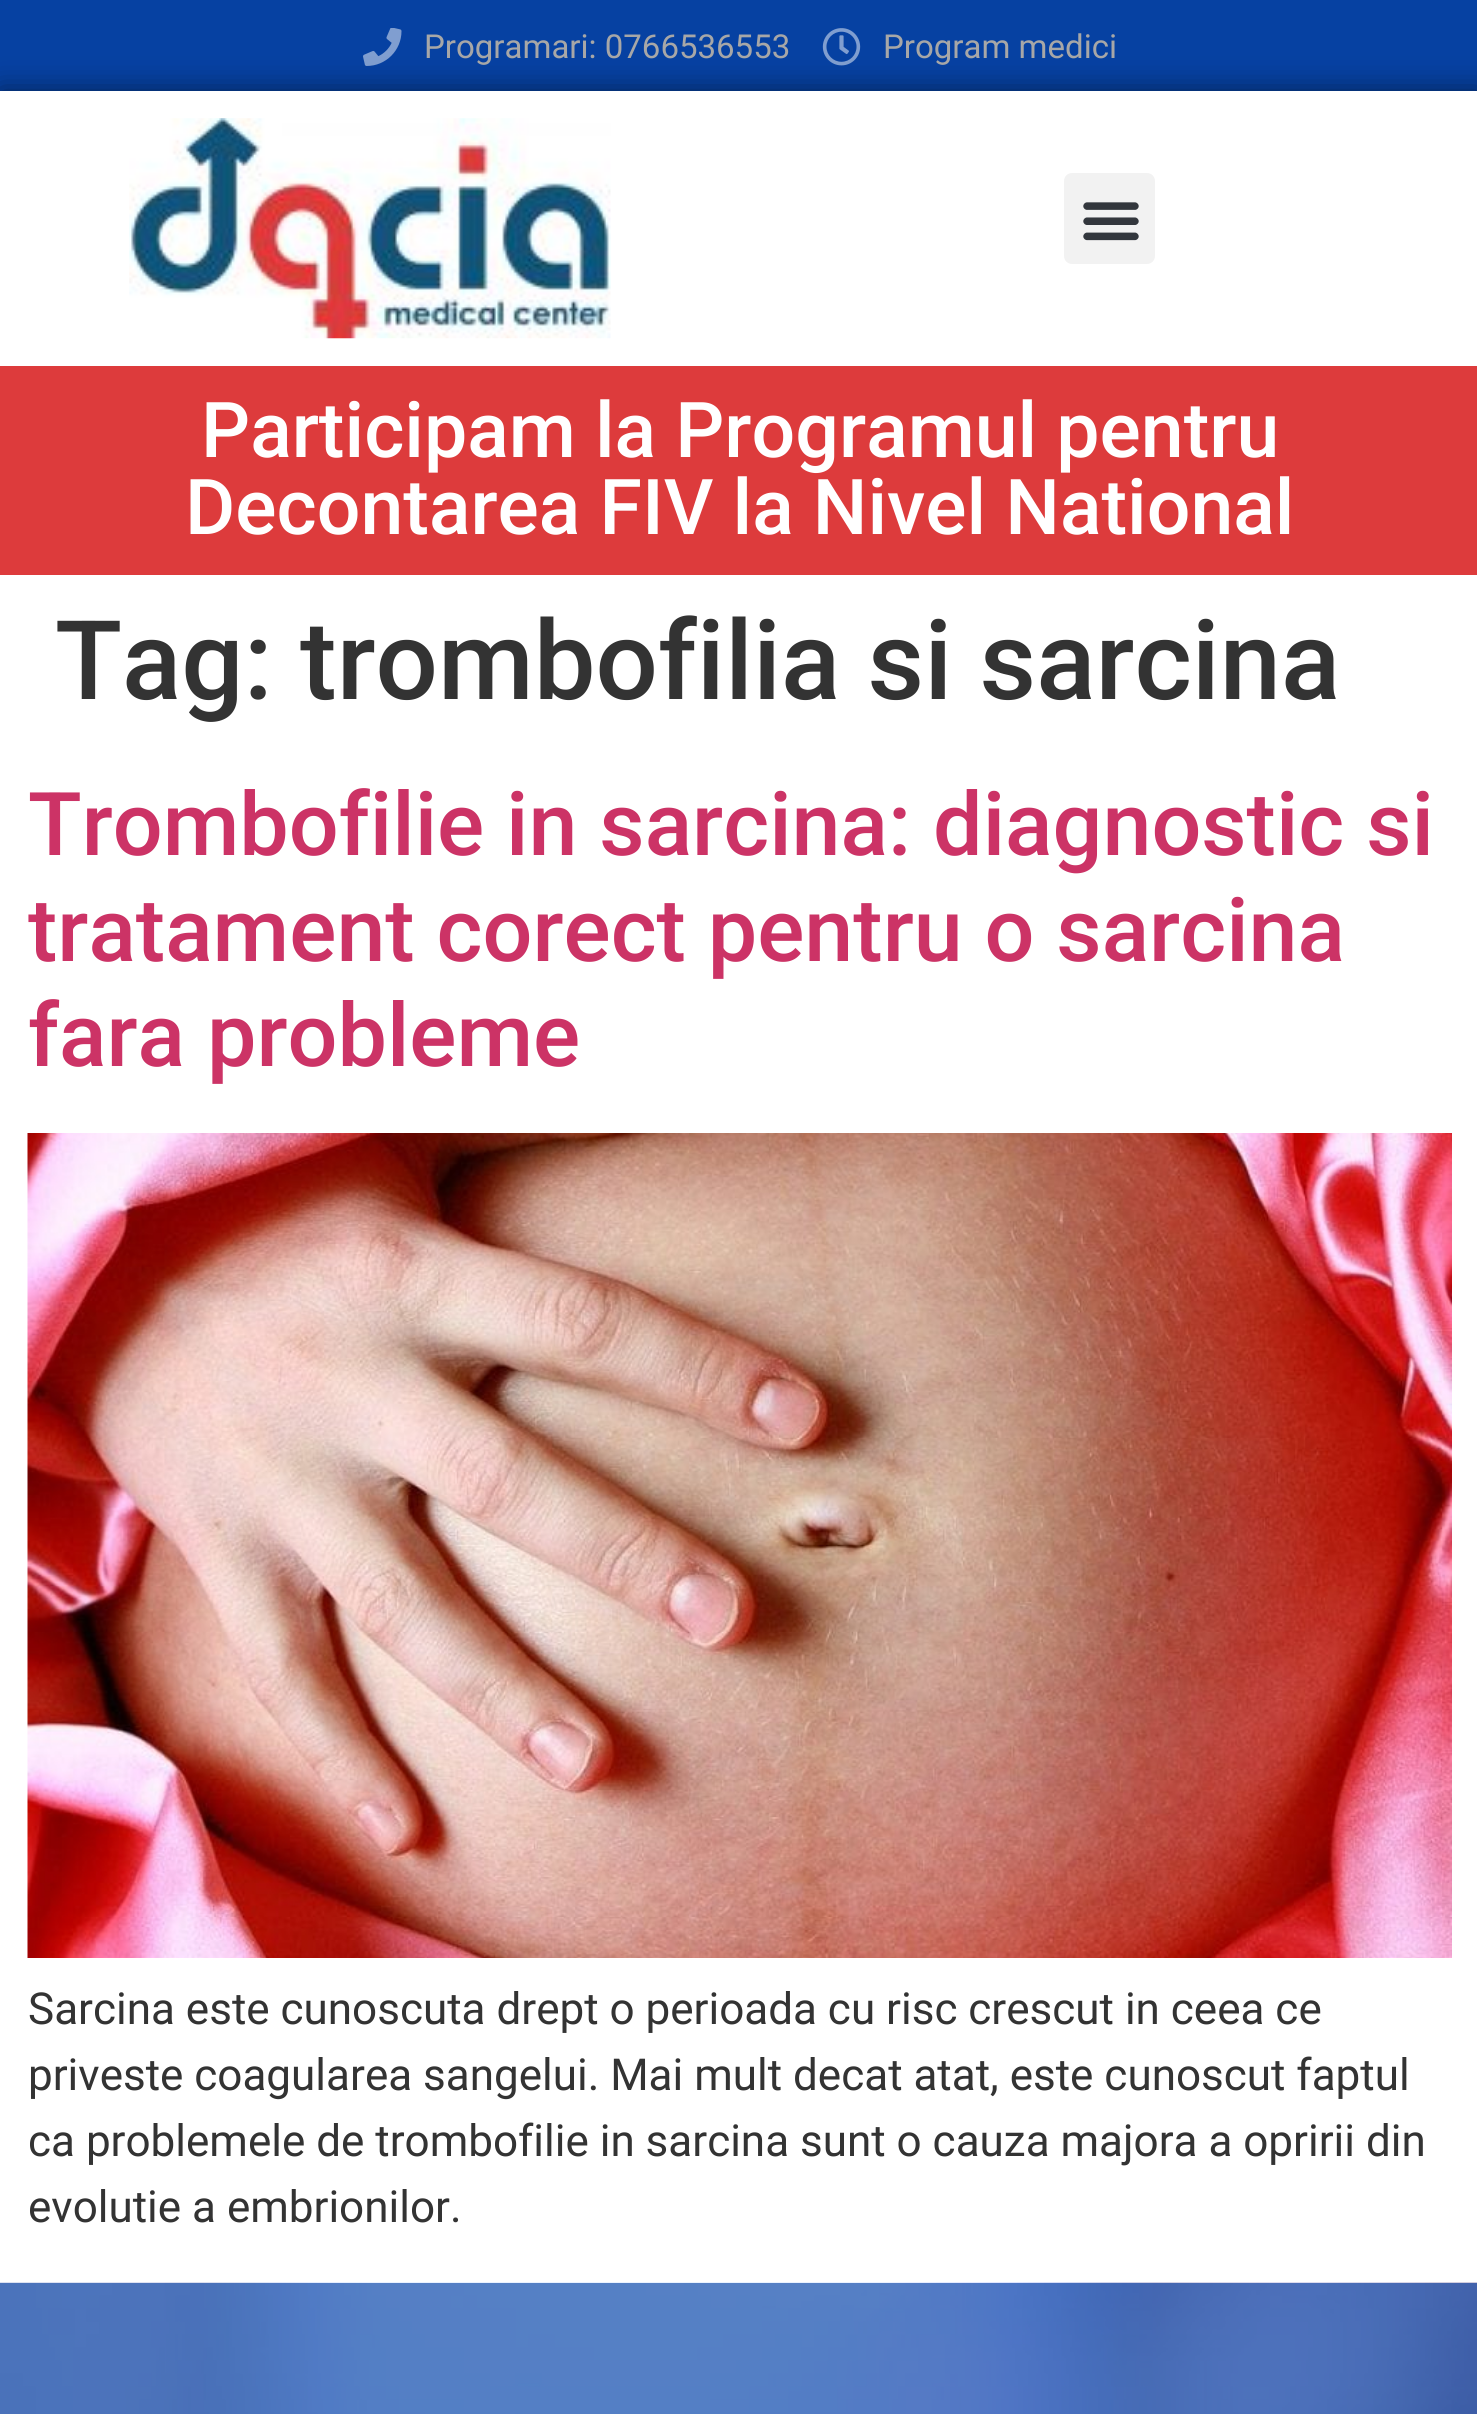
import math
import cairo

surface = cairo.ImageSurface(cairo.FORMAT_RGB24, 1477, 2414)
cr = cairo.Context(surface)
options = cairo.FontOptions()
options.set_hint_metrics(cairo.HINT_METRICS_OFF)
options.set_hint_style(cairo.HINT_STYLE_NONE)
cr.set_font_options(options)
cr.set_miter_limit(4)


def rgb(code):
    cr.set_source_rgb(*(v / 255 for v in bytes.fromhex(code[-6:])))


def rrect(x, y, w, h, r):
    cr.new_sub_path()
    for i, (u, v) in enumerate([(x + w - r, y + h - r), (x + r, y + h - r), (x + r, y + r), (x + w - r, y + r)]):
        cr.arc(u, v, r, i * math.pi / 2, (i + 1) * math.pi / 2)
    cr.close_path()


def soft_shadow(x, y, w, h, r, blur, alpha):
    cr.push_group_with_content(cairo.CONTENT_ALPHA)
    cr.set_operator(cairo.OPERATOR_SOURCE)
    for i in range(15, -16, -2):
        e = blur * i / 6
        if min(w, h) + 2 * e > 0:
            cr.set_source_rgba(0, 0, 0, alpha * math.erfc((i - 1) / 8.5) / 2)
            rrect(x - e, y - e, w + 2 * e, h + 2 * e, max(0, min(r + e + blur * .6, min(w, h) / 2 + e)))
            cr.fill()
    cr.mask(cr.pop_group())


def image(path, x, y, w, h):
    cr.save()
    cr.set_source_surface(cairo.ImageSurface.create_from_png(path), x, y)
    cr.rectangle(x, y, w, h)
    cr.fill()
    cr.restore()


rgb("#ffffff")
cr.paint()
rgb("#0641a2")
cr.rectangle(0, 0, 1477, 91)
cr.fill()
image("img/1.png", 363, 28, 39, 38)
image("img/2.png", 822, 28, 39, 38)
rgb("#000000")
soft_shadow(0, 91, 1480, 275, 0, 14, 0.5)
rgb("#ffffff")
cr.rectangle(0, 91, 1477, 275)
cr.fill()
image("img/3.png", 129, 118, 482, 221)
rgb("#f2f2f2")
rrect(1064, 173, 91, 91, 8)
cr.fill()
image("img/4.png", 1083, 202, 56, 39)
rgb("#dd3b3c")
cr.rectangle(0, 366, 1477, 209)
cr.fill()
image("img/5.png", 27, 1133, 1425, 825)
image("img/6.png", 0, 2282, 1477, 132)
cr.select_font_face("Roboto")
cr.set_font_size(33)
rgb("#a7a7a7")
cr.move_to(424, 58)
cr.show_text("Programari: 0766536553")
cr.move_to(883, 58)
cr.show_text("Program medici")
cr.select_font_face("Roboto Medium")
cr.set_font_size(77)
rgb("#ffffff")
cr.move_to(201, 457)
cr.show_text("Participam la Programul pentru")
cr.move_to(185, 534)
cr.show_text("Decontarea FIV la Nivel National")
cr.set_font_size(110)
rgb("#333333")
cr.move_to(55, 699)
cr.show_text("Tag: trombofilia si sarcina")
cr.set_font_size(88)
rgb("#cc3366")
for x, y, s in [
    (28, 855, "Trombofilie in sarcina: diagnostic si"),
    (28, 961, "tratament corect pentru o sarcina"),
    (28, 1066, "fara probleme"),
]:
    cr.move_to(x, y)
    cr.show_text(s)
cr.select_font_face("Roboto")
cr.set_font_size(44)
rgb("#333333")
for x, y, s in [
    (28, 2024, "Sarcina este cunoscuta drept o perioada cu risc crescut in ceea ce"),
    (28, 2090, "priveste coagularea sangelui. Mai mult decat atat, este cunoscut faptul"),
    (28, 2156, "ca problemele de trombofilie in sarcina sunt o cauza majora a opririi din"),
    (28, 2222, "evolutie a embrionilor."),
]:
    cr.move_to(x, y)
    cr.show_text(s)
surface.write_to_png("page.png")
